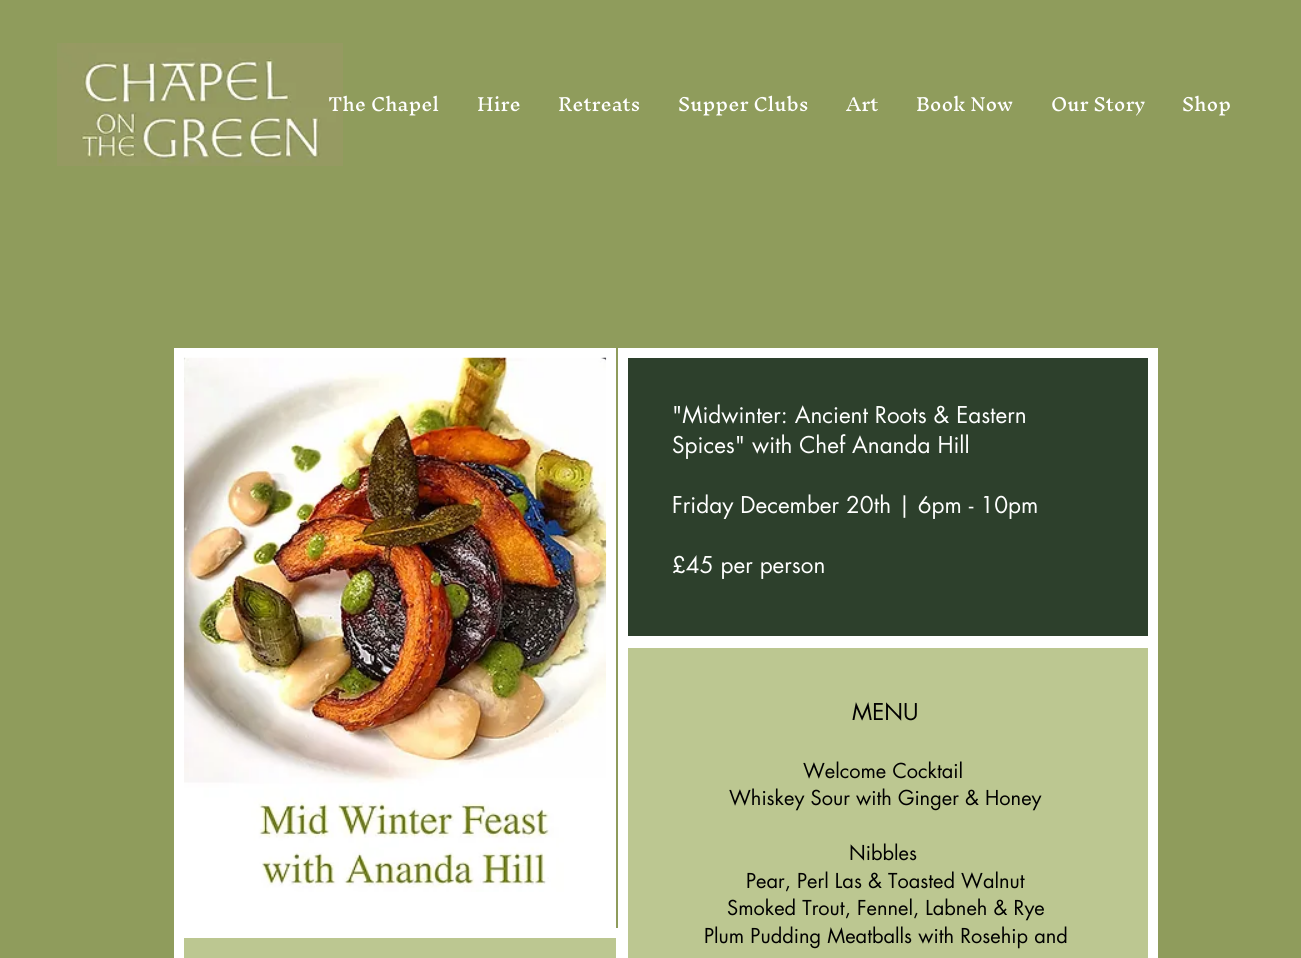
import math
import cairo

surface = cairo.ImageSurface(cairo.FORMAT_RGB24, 1301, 958)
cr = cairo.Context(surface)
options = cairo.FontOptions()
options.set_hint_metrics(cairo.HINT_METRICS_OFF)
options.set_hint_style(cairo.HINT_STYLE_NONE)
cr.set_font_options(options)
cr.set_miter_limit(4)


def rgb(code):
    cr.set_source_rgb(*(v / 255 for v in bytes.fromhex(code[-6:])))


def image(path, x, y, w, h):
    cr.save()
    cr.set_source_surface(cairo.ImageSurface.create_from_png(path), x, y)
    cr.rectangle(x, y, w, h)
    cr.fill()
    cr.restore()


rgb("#8f9c5c")
cr.paint()
image("img/1.png", 57, 43, 286, 123)
rgb("#ffffff")
cr.rectangle(174, 348, 442, 580)
cr.fill()
image("img/2.png", 183, 357, 424, 535)
rgb("#2d402c")
cr.rectangle(623, 353, 530, 288)
cr.fill_preserve()
rgb("#ffffff")
cr.set_line_width(10)
cr.stroke()
rgb("#bcc791")
cr.rectangle(179, 933, 442, 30)
cr.fill_preserve()
rgb("#ffffff")
cr.stroke()
rgb("#bcc791")
cr.rectangle(623, 643, 530, 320)
cr.fill_preserve()
rgb("#ffffff")
cr.stroke()
cr.select_font_face("Inknut Antiqua")
cr.set_font_size(17.5)
for x, y, s in [
    (328, 111, "The Chapel"),
    (477, 111, "Hire"),
    (558, 111, "Retreats"),
    (678, 111, "Supper Clubs"),
    (846, 111, "Art"),
    (916, 111, "Book Now"),
    (1051, 111, "Our Story"),
    (1182, 111, "Shop"),
]:
    cr.move_to(x, y)
    cr.show_text(s)
cr.select_font_face("futura")
cr.set_font_size(22.5)
for x, y, s in [
    (672, 423, "\"Midwinter: Ancient Roots & Eastern"),
    (672, 453, "Spices\" with Chef Ananda Hill"),
    (672, 513, "Friday December 20th | 6pm - 10pm"),
    (672, 573, "£45 per person"),
]:
    cr.move_to(x, y)
    cr.show_text(s)
rgb("#000000")
cr.move_to(852, 720)
cr.show_text("MENU")
cr.set_font_size(20)
for x, y, s in [
    (803, 778, "Welcome Cocktail"),
    (729, 805, "Whiskey Sour with Ginger & Honey"),
    (849, 860, "Nibbles"),
    (746, 888, "Pear, Perl Las & Toasted Walnut"),
    (727, 915, "Smoked Trout, Fennel, Labneh & Rye"),
    (704, 943, "Plum Pudding Meatballs with Rosehip and"),
]:
    cr.move_to(x, y)
    cr.show_text(s)
surface.write_to_png("page.png")
